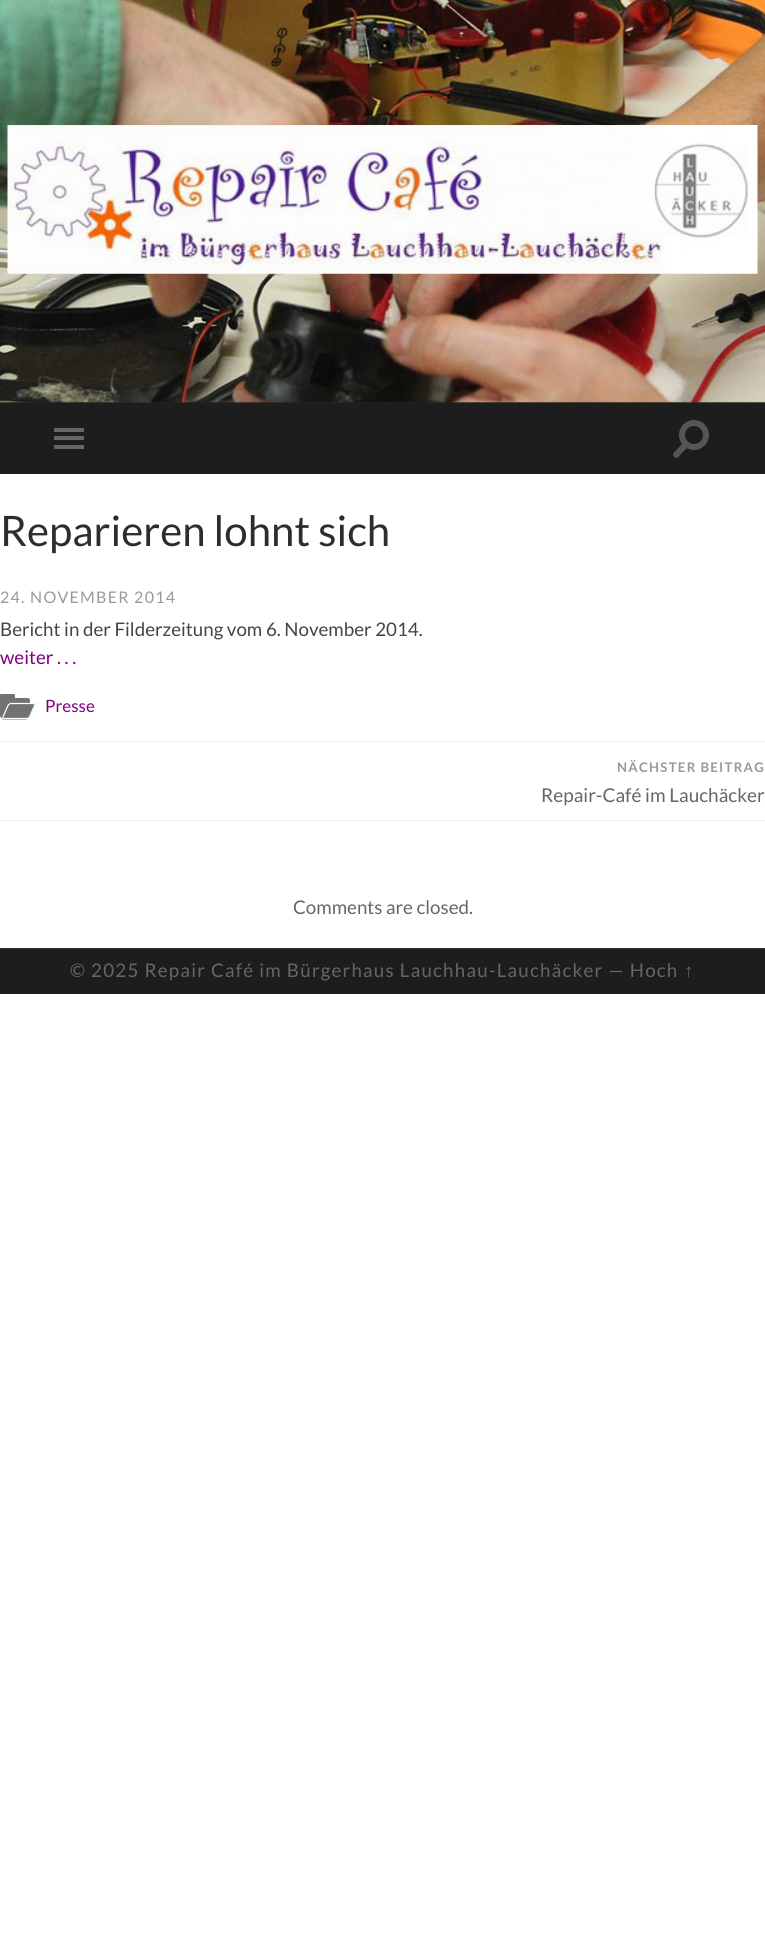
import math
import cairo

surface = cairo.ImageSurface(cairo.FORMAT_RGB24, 765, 1939)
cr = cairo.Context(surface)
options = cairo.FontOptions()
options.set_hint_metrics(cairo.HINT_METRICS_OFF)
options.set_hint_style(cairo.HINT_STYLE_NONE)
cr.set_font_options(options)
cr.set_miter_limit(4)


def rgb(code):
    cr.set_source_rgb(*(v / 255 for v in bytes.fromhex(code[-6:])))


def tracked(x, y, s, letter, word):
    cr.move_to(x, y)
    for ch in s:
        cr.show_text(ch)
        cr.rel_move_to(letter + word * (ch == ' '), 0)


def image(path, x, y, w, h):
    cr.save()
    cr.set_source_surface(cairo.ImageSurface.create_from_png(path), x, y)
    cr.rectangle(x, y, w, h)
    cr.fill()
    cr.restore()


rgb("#ffffff")
cr.paint()
rgb("#262626")
cr.rectangle(0, 402, 765, 1)
cr.fill()
image("img/1.png", 0, 0, 765, 403)
image("img/2.png", 7, 125, 751, 149)
for x, y, w, h, color in [
    (0, 403, 765, 71, "#1d1d1d"),
    (54, 428, 30, 4, "#666666"),
    (54, 436, 30, 4, "#666666"),
    (54, 445, 30, 4, "#666666"),
]:
    rgb(color)
    cr.rectangle(x, y, w, h)
    cr.fill()
rgb("#555555")
cr.arc(694, 435, 15, 0, 2 * math.pi)
cr.fill()
rgb("#1d1d1d")
cr.arc(694, 435, 9, 0, 2 * math.pi)
cr.fill()
rgb("#555555")
cr.new_path()
cr.move_to(673.5, 453)
cr.line_to(684, 442)
cr.line_to(688.5, 446.5)
cr.line_to(681.5, 453.5)
cr.curve_to(679, 456, 676.5, 460.5, 673.5, 456)
cr.curve_to(672.5, 455, 673, 453.5, 673.5, 453)
cr.close_path()
cr.fill()
rgb("#727272")
cr.new_path()
cr.move_to(0, 698)
cr.line_to(27.5, 698)
cr.curve_to(29, 698, 30, 699, 30, 700.5)
cr.line_to(30, 715.5)
cr.curve_to(30, 717, 29, 718, 27.5, 718)
cr.line_to(2.5, 718)
cr.curve_to(1, 718, 0, 717, 0, 715.5)
cr.close_path()
cr.fill()
cr.new_path()
cr.move_to(1, 694)
cr.line_to(14, 694)
cr.curve_to(14.5, 694, 15, 694.5, 15, 695)
cr.line_to(15, 698)
cr.line_to(0, 698)
cr.line_to(0, 695)
cr.curve_to(0, 694.5, 0.5, 694, 1, 694)
cr.close_path()
cr.fill()
cr.new_path()
cr.move_to(11.5, 703)
cr.line_to(34, 703)
cr.curve_to(35, 703, 36, 704, 35, 705.5)
cr.line_to(30, 717)
cr.curve_to(29, 718, 27.5, 719.5, 26, 719.5)
cr.line_to(3.5, 719.5)
cr.curve_to(2.5, 719.5, 1.5, 718, 2.5, 717)
cr.line_to(7.5, 705.5)
cr.curve_to(8.5, 704, 10, 703, 11.5, 703)
cr.close_path()
cr.fill()
cr.new_path()
cr.move_to(11, 703.5)
cr.line_to(33.5, 703.5)
cr.curve_to(34.5, 703.5, 35, 704.5, 34.5, 705.5)
cr.line_to(29.5, 717)
cr.curve_to(29, 718, 27.5, 718.5, 26.5, 718.5)
cr.line_to(4, 718.5)
cr.curve_to(3, 718.5, 2.5, 718, 3, 717)
cr.line_to(8, 705.5)
cr.curve_to(8.5, 704.5, 10, 703.5, 11, 703.5)
cr.close_path()
rgb("#ffffff")
cr.set_line_width(1.2)
cr.stroke()
for x, y, w, h, color in [
    (0, 741, 765, 1, "#eeeeee"),
    (0, 820, 765, 1, "#eeeeee"),
    (0, 949, 765, 45, "#1d1d1d"),
    (0, 948, 765, 1, "#343434"),
]:
    rgb(color)
    cr.rectangle(x, y, w, h)
    cr.fill()
cr.select_font_face("Lato")
cr.set_font_size(42)
rgb("#2d2d2d")
cr.move_to(0, 546)
cr.show_text("Reparieren lohnt sich")
cr.set_font_size(16)
rgb("#999999")
tracked(0, 603, "24. NOVEMBER 2014", 1.25, 0)
cr.set_font_size(18.75)
rgb("#444444")
cr.move_to(0, 636)
cr.show_text("Bericht in der Filderzeitung vom 6. November 2014.")
rgb("#800080")
cr.move_to(0, 664)
cr.show_text("weiter . . .")
cr.set_font_size(17)
cr.move_to(45, 712)
cr.show_text("Presse")
cr.select_font_face("Lato", cairo.FONT_SLANT_NORMAL, cairo.FONT_WEIGHT_BOLD)
cr.set_font_size(13.25)
rgb("#999999")
tracked(617, 772, "NÄCHSTER BEITRAG", 1.25, 0)
cr.select_font_face("Lato")
cr.set_font_size(19)
rgb("#666666")
cr.move_to(541, 802)
cr.show_text("Repair-Café im Lauchäcker")
cr.set_font_size(18.75)
cr.move_to(293, 914)
cr.show_text("Comments are closed.")
tracked(70, 977, "© 2025 Repair Café im Bürgerhaus Lauchhau-Lauchäcker — Hoch", 1.25, 0)
cr.select_font_face("Liberation Sans")
tracked(684, 977, "↑", 1.25, 0)
surface.write_to_png("page.png")
